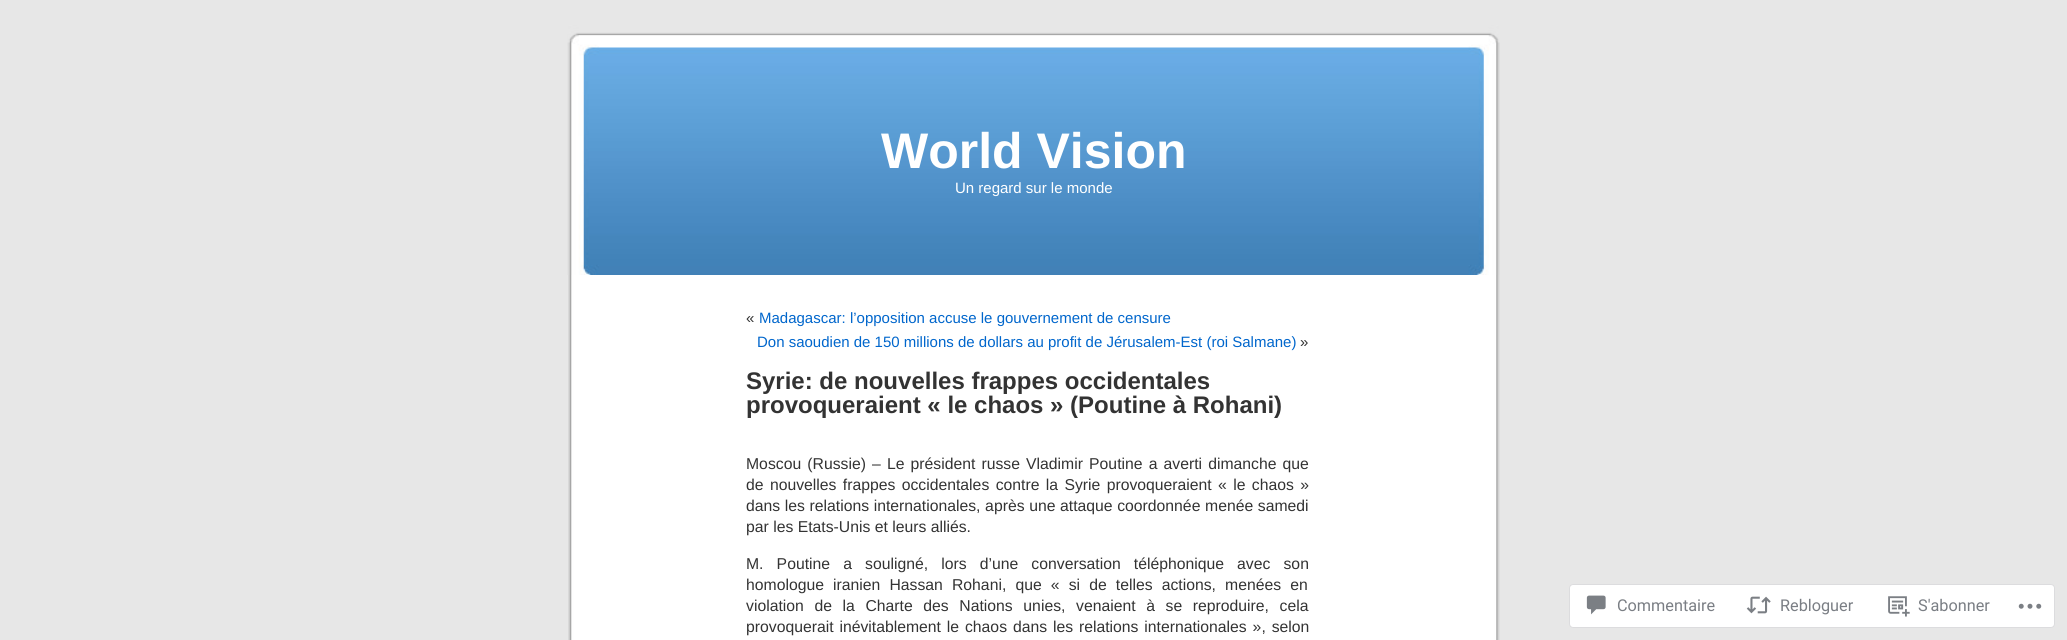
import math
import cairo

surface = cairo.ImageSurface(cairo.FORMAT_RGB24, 2067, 640)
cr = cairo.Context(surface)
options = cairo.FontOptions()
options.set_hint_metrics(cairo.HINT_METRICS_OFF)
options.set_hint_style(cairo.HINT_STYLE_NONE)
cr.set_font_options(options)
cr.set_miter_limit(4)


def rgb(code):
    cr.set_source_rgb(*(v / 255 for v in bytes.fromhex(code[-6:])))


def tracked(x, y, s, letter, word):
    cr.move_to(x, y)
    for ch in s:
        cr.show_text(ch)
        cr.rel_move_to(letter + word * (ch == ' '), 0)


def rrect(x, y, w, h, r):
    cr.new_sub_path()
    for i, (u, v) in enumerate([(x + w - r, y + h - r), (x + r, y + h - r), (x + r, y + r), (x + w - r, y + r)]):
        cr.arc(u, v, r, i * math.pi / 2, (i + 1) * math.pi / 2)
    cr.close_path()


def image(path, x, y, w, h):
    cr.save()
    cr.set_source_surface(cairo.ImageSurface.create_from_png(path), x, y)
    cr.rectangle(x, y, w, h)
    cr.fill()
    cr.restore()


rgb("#e7e7e7")
cr.paint()
image("img/1.png", 568, 275, 932, 365)
image("img/2.png", 567, 25, 933, 250)
rgb("#ffffff")
rrect(1569.5, 584.5, 485, 43, 3.5)
cr.fill_preserve()
rgb("#dcdcde")
cr.set_line_width(1)
cr.stroke()
image("img/3.png", 1586, 595, 20, 20)
image("img/4.png", 1746, 596, 25, 18)
image("img/5.png", 1888, 596, 22, 21)
image("img/6.png", 2018, 603, 24, 6)
cr.select_font_face("Liberation Sans", cairo.FONT_SLANT_NORMAL, cairo.FONT_WEIGHT_BOLD)
cr.set_font_size(50)
rgb("#ffffff")
cr.move_to(881, 168)
cr.show_text("World Vision")
cr.select_font_face("Liberation Sans")
cr.set_font_size(15)
cr.move_to(955, 193)
cr.show_text("Un regard sur le monde")
rgb("#333333")
cr.move_to(746, 323)
cr.show_text("«")
rgb("#0066cc")
cr.move_to(759, 323)
cr.show_text("Madagascar: l’opposition accuse le gouvernement de censure")
cr.move_to(757, 347)
cr.show_text("Don saoudien de 150 millions de dollars au profit de Jérusalem-Est (roi Salmane)")
rgb("#333333")
cr.move_to(1300, 347)
cr.show_text("»")
cr.select_font_face("Liberation Sans", cairo.FONT_SLANT_NORMAL, cairo.FONT_WEIGHT_BOLD)
cr.set_font_size(24)
cr.move_to(746, 389)
cr.show_text("Syrie: de nouvelles frappes occidentales")
cr.move_to(746, 413)
cr.show_text("provoqueraient « le chaos » (Poutine à Rohani)")
cr.select_font_face("Liberation Sans")
cr.set_font_size(15.75)
tracked(746, 469, "Moscou (Russie) – Le président russe Vladimir Poutine a averti dimanche que", 0, 1.75)
tracked(746, 490, "de nouvelles frappes occidentales contre la Syrie provoqueraient « le chaos »", 0, 2)
tracked(746, 511, "dans les relations internationales, après une attaque coordonnée menée samedi", 0, 0.25)
cr.move_to(746, 532)
cr.show_text("par les Etats-Unis et leurs alliés.")
tracked(746, 569, "M. Poutine a souligné, lors d’une conversation téléphonique avec son", 0, 8.75)
tracked(746, 590, "homologue iranien Hassan Rohani, que « si de telles actions, menées en", 0, 4.75)
tracked(746, 611, "violation de la Charte des Nations unies, venaient à se reproduire, cela", 0, 6.25)
tracked(746, 632, "provoquerait inévitablement le chaos dans les relations internationales », selon", 0, 1.5)
cr.select_font_face("Roboto")
cr.set_font_size(16.25)
rgb("#7a7e84")
for x, y, s in [
    (1617, 611, "Commentaire"),
    (1780, 611, "Rebloguer"),
    (1918, 611, "S'abonner"),
]:
    cr.move_to(x, y)
    cr.show_text(s)
surface.write_to_png("page.png")
